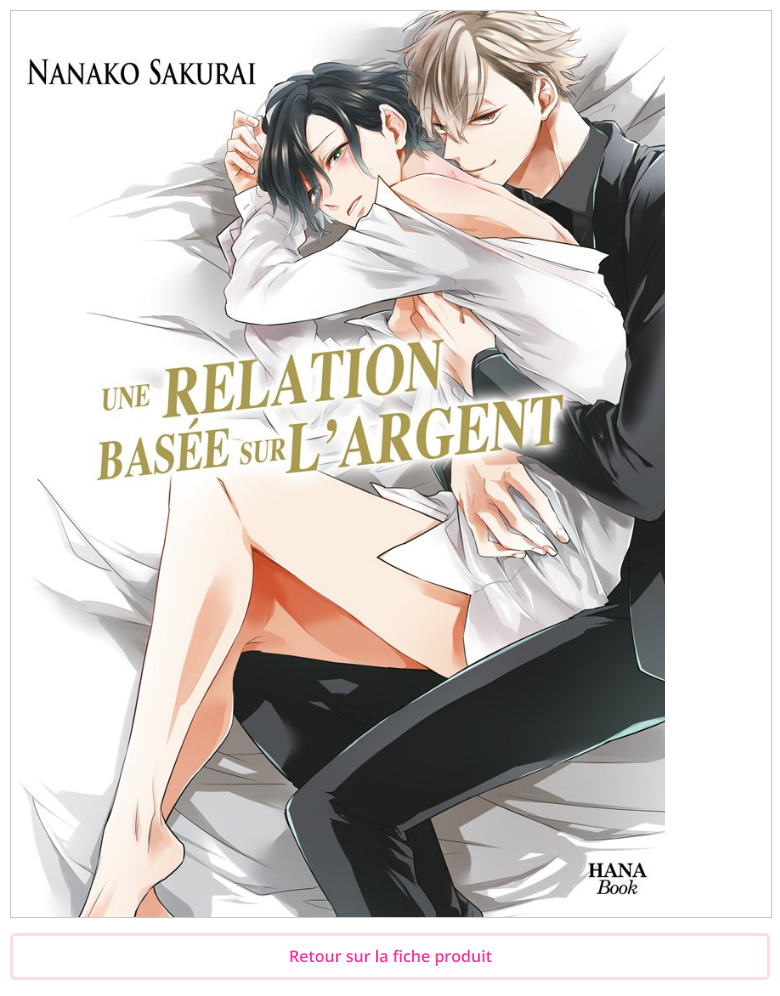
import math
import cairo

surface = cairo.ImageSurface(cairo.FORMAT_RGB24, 780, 996)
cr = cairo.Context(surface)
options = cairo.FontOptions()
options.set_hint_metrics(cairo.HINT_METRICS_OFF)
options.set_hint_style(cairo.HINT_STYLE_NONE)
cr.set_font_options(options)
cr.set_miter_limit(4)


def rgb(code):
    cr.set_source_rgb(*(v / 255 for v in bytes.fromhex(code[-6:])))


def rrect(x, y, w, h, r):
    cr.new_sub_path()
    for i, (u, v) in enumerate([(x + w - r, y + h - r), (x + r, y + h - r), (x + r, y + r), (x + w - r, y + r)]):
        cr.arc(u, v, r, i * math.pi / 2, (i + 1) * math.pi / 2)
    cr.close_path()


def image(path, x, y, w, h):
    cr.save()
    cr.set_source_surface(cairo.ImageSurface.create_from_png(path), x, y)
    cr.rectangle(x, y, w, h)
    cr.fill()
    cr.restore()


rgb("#ffffff")
cr.paint()
cr.rectangle(10.5, 10.5, 761, 907)
rgb("#c7c7c7")
cr.set_line_width(1)
cr.stroke()
image("img/1.png", 18, 11, 647, 906)
rrect(11.5, 934.5, 757, 44, 3.5)
rgb("#ffdaee")
cr.set_line_width(3)
cr.stroke()
cr.select_font_face("Open Sans SemiBold")
cr.set_font_size(16)
rgb("#ff32a1")
cr.move_to(289, 962)
cr.show_text("Retour sur la fiche produit")
surface.write_to_png("page.png")
